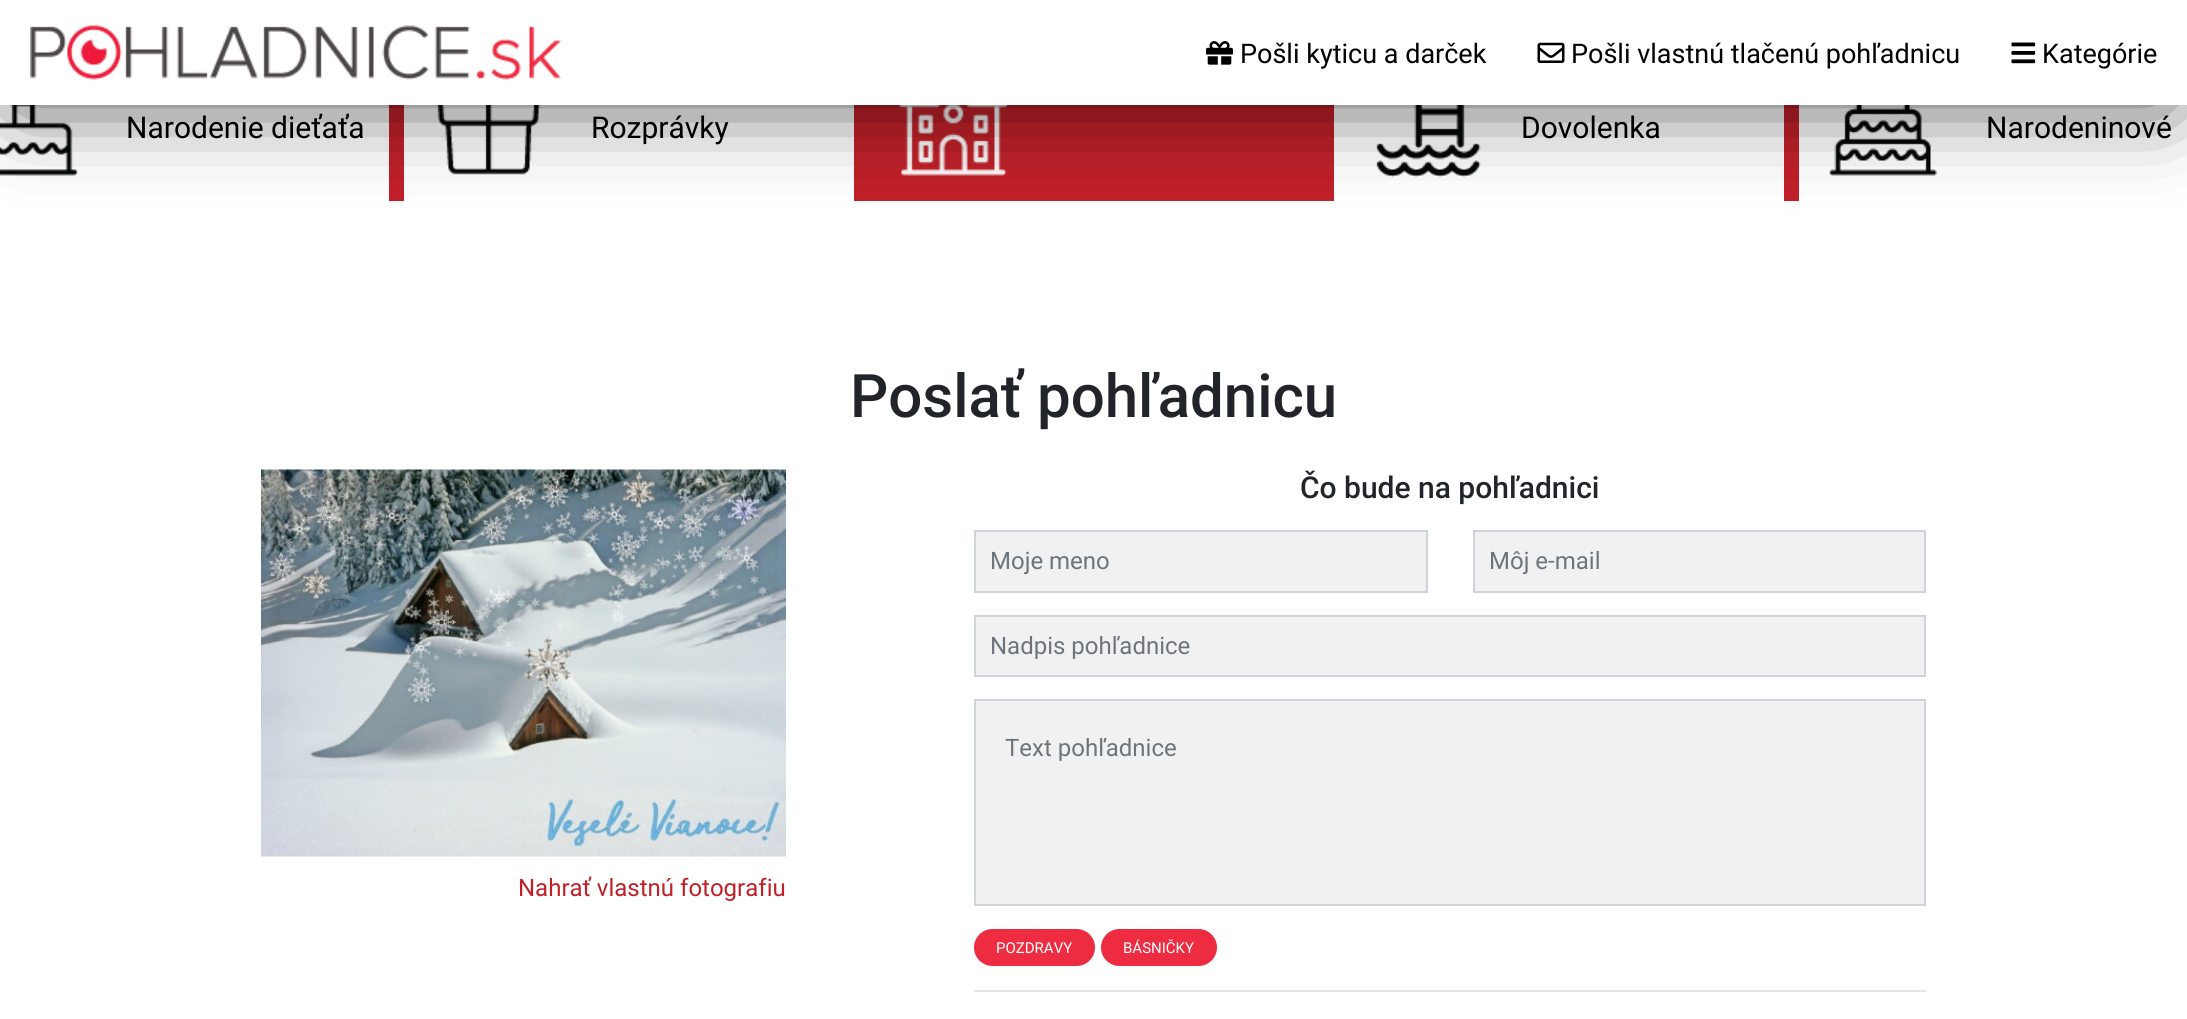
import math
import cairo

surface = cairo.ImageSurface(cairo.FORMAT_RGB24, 2187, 1019)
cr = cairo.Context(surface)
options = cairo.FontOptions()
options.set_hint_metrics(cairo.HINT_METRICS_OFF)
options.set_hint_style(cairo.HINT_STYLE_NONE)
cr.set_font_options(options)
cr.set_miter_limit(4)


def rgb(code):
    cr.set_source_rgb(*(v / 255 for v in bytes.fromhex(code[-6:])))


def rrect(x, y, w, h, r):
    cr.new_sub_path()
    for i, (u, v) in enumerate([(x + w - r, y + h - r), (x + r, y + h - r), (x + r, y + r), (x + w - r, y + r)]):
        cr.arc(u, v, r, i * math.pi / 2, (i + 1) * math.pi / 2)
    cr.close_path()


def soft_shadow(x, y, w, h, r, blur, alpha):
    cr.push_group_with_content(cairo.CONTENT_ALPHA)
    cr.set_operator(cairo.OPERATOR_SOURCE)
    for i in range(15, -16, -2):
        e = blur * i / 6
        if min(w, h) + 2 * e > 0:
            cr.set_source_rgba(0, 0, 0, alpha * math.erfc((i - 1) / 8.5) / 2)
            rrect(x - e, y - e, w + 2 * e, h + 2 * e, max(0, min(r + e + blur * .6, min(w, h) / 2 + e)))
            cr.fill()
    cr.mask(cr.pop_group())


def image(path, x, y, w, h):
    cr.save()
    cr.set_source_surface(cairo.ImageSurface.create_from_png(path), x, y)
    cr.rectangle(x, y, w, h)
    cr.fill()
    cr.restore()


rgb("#ffffff")
cr.paint()
rgb("#c12029")
cr.rectangle(389, 105, 1410, 96)
cr.fill()
image("img/5.png", 0, 105, 79, 71)
rgb("#ffffff")
cr.rectangle(404, 105, 450, 96)
cr.fill()
image("img/6.png", 437, 105, 104, 70)
image("img/7.png", 898, 105, 111, 71)
cr.rectangle(1334, 105, 450, 96)
cr.fill()
image("img/8.png", 1376, 105, 105, 73)
image("img/9.png", 1829, 105, 108, 71)
rgb("#000000")
soft_shadow(20, 35, 2148, 66, 0, 43.5, 0.75)
rgb("#ffffff")
cr.rectangle(0, 0, 2187, 105)
cr.fill()
image("img/1.png", 30, 25, 531, 55)
image("img/2.png", 1206, 41, 27, 24)
image("img/3.png", 1537, 42, 28, 21)
image("img/4.png", 2011, 42, 25, 22)
image("img/10.png", 261, 469, 525, 388)
rgb("#f1f1f1")
cr.rectangle(975, 531, 452, 61)
cr.fill_preserve()
rgb("#ced4da")
cr.stroke()
rgb("#f1f1f1")
cr.rectangle(1474, 531, 451, 61)
cr.fill_preserve()
rgb("#ced4da")
cr.stroke()
rgb("#f1f1f1")
cr.rectangle(975, 616, 950, 60)
cr.fill_preserve()
rgb("#ced4da")
cr.stroke()
rgb("#f1f1f1")
cr.rectangle(975, 700, 950, 205)
cr.fill_preserve()
rgb("#ced4da")
cr.stroke()
rgb("#ed2c41")
rrect(974, 929, 121, 37, 18.5)
cr.fill()
rrect(1101, 929, 116, 37, 18.5)
cr.fill()
rgb("#e6e6e6")
cr.rectangle(974, 990, 952, 2)
cr.fill()
cr.select_font_face("Roboto")
cr.set_font_size(27)
rgb("#000000")
for x, y, s in [
    (1240, 63, "Pošli kyticu a darček"),
    (1571, 63, "Pošli vlastnú tlačenú pohľadnicu"),
    (2042, 63, "Kategórie"),
]:
    cr.move_to(x, y)
    cr.show_text(s)
cr.set_font_size(30)
for x, y, s in [
    (126, 138, "Narodenie dieťaťa"),
    (591, 138, "Rozprávky"),
    (1521, 138, "Dovolenka"),
    (1986, 138, "Narodeninové"),
]:
    cr.move_to(x, y)
    cr.show_text(s)
cr.select_font_face("Roboto Medium")
cr.set_font_size(60)
rgb("#212529")
cr.move_to(850, 417)
cr.show_text("Poslať pohľadnicu")
cr.select_font_face("Roboto")
cr.set_font_size(24)
rgb("#c12029")
cr.move_to(518, 896)
cr.show_text("Nahrať vlastnú fotografiu")
cr.select_font_face("Roboto Medium")
cr.set_font_size(30)
rgb("#212529")
cr.move_to(1300, 498)
cr.show_text("Čo bude na pohľadnici")
cr.select_font_face("Roboto")
cr.set_font_size(24)
rgb("#6c757d")
for x, y, s in [
    (990, 569, "Moje meno"),
    (1489, 569, "Môj e-mail"),
    (990, 654, "Nadpis pohľadnice"),
    (1005, 756, "Text pohľadnice"),
]:
    cr.move_to(x, y)
    cr.show_text(s)
cr.set_font_size(15)
rgb("#ffffff")
cr.move_to(996, 953)
cr.show_text("POZDRAVY")
cr.move_to(1123, 953)
cr.show_text("BÁSNIČKY")
surface.write_to_png("page.png")
